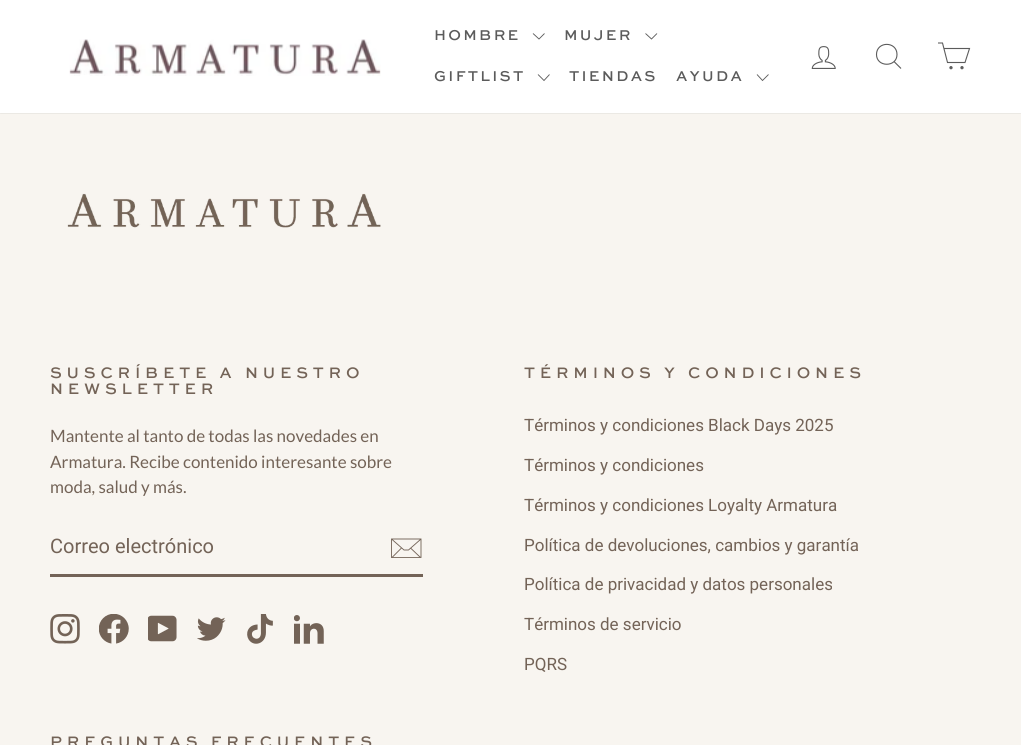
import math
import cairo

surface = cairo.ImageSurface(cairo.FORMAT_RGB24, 1021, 745)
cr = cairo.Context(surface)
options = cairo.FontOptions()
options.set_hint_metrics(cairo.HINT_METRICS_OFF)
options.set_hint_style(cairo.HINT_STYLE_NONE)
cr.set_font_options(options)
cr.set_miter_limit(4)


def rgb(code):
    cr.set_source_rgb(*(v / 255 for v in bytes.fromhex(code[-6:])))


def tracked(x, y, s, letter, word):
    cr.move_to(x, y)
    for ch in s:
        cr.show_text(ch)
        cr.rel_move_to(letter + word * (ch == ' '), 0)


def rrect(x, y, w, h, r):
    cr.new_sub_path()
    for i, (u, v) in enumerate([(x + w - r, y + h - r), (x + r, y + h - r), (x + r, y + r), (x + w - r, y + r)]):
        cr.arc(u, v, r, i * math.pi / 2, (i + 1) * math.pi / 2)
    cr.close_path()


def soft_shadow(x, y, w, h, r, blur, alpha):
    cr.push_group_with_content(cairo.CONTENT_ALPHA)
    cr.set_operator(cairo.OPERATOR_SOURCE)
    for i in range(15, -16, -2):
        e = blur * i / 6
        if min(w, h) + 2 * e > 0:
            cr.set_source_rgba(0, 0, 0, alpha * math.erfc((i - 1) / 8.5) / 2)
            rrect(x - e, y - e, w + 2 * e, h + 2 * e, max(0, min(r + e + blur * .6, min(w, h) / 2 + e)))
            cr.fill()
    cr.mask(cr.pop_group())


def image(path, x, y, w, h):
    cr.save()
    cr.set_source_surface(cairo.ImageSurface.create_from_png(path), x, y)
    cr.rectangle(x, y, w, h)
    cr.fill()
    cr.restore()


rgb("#f8f5f0")
cr.paint()
rgb("#000000")
soft_shadow(0, 0, 1021, 113, 0, 0.5, 0.2)
rgb("#ffffff")
cr.rectangle(0, 0, 1021, 113)
cr.fill()
image("img/1.png", 69, 39, 312, 37)
cr.new_path()
cr.move_to(533, 33.5)
cr.line_to(539, 39)
cr.line_to(544.5, 33.5)
rgb("#5b5b5b")
cr.set_line_width(0.9)
cr.stroke()
cr.new_path()
cr.move_to(645.5, 33.5)
cr.line_to(651.5, 39)
cr.line_to(657, 33.5)
cr.stroke()
cr.new_path()
cr.move_to(538, 74.5)
cr.line_to(544, 80.5)
cr.line_to(549.5, 74.5)
cr.stroke()
cr.new_path()
cr.move_to(757, 74.5)
cr.line_to(762.5, 80.5)
cr.line_to(768.5, 74.5)
cr.stroke()
image("img/2.png", 811, 46, 25, 23)
cr.new_path()
cr.move_to(897, 54.5)
cr.curve_to(897, 67.5, 876.5, 67.5, 876.5, 54.5)
cr.curve_to(876.5, 41, 897, 41, 897, 54.5)
cr.close_path()
cr.move_to(901, 68.5)
cr.line_to(894, 61.5)
cr.set_line_width(1.1)
cr.stroke()
cr.new_path()
cr.move_to(944, 48.5)
cr.line_to(969.5, 48.5)
cr.line_to(965, 62.5)
cr.line_to(947.5, 62.5)
cr.line_to(942.5, 43)
cr.line_to(938, 43)
cr.stroke()
cr.arc(951, 67.7, 1.1, 0, 2 * math.pi)
cr.fill_preserve()
cr.stroke()
cr.arc(962, 67.7, 1.1, 0, 2 * math.pi)
cr.fill_preserve()
cr.stroke()
image("img/3.png", 67, 193, 314, 35)
rgb("#736357")
cr.rectangle(50, 574, 373, 3)
cr.fill()
cr.new_path()
cr.move_to(421, 557.5)
cr.line_to(391.5, 557.5)
cr.line_to(391.5, 539)
cr.line_to(421, 539)
cr.close_path()
cr.move_to(391.5, 539)
cr.line_to(404, 550)
cr.line_to(408.5, 550)
cr.line_to(421, 539)
cr.move_to(401.5, 548)
cr.line_to(392, 557.5)
cr.move_to(420.5, 557.5)
cr.line_to(410.5, 548)
cr.set_line_width(0.9)
cr.stroke()
image("img/4.png", 50, 614, 30, 30)
image("img/5.png", 99, 614, 30, 30)
image("img/6.png", 148, 615, 29, 27)
image("img/7.png", 197, 617, 29, 24)
image("img/8.png", 247, 614, 26, 30)
image("img/9.png", 294, 615, 30, 29)
cr.select_font_face("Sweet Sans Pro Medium")
cr.set_font_size(15)
rgb("#5b5b5b")
for x, y, s in [
    (434, 40, "HOMBRE"),
    (564, 40, "MUJER"),
    (434, 81, "GIFTLIST"),
    (569, 81, "TIENDAS"),
    (676, 81, "AYUDA"),
]:
    tracked(x, y, s, 2.25, 0)
cr.set_font_size(16)
rgb("#736357")
tracked(50, 378, "SUSCRÍBETE A NUESTRO", 4.8, 0)
tracked(50, 394, "NEWSLETTER", 4.8, 0)
cr.select_font_face("Lato")
cr.set_font_size(17)
for x, y, s in [
    (50, 442, "Mantente al tanto de todas las novedades en"),
    (50, 468, "Armatura. Recibe contenido interesante sobre"),
    (50, 493, "moda, salud y más."),
]:
    cr.move_to(x, y)
    cr.show_text(s)
cr.select_font_face("Roboto")
cr.set_font_size(20)
cr.move_to(50, 553)
cr.show_text("Correo electrónico")
cr.select_font_face("Sweet Sans Pro Medium")
cr.set_font_size(16)
tracked(524, 378, "TÉRMINOS Y CONDICIONES", 4.8, 0)
cr.select_font_face("Roboto")
cr.set_font_size(17)
for x, y, s in [
    (524, 431, "Términos y condiciones Black Days 2025"),
    (524, 471, "Términos y condiciones"),
    (524, 511, "Términos y condiciones Loyalty Armatura"),
    (524, 551, "Política de devoluciones, cambios y garantía"),
    (524, 590, "Política de privacidad y datos personales"),
    (524, 630, "Términos de servicio"),
    (524, 670, "PQRS"),
]:
    cr.move_to(x, y)
    cr.show_text(s)
cr.select_font_face("Sweet Sans Pro Medium")
cr.set_font_size(16)
tracked(50, 747, "PREGUNTAS FRECUENTES", 4.8, 0)
surface.write_to_png("page.png")
